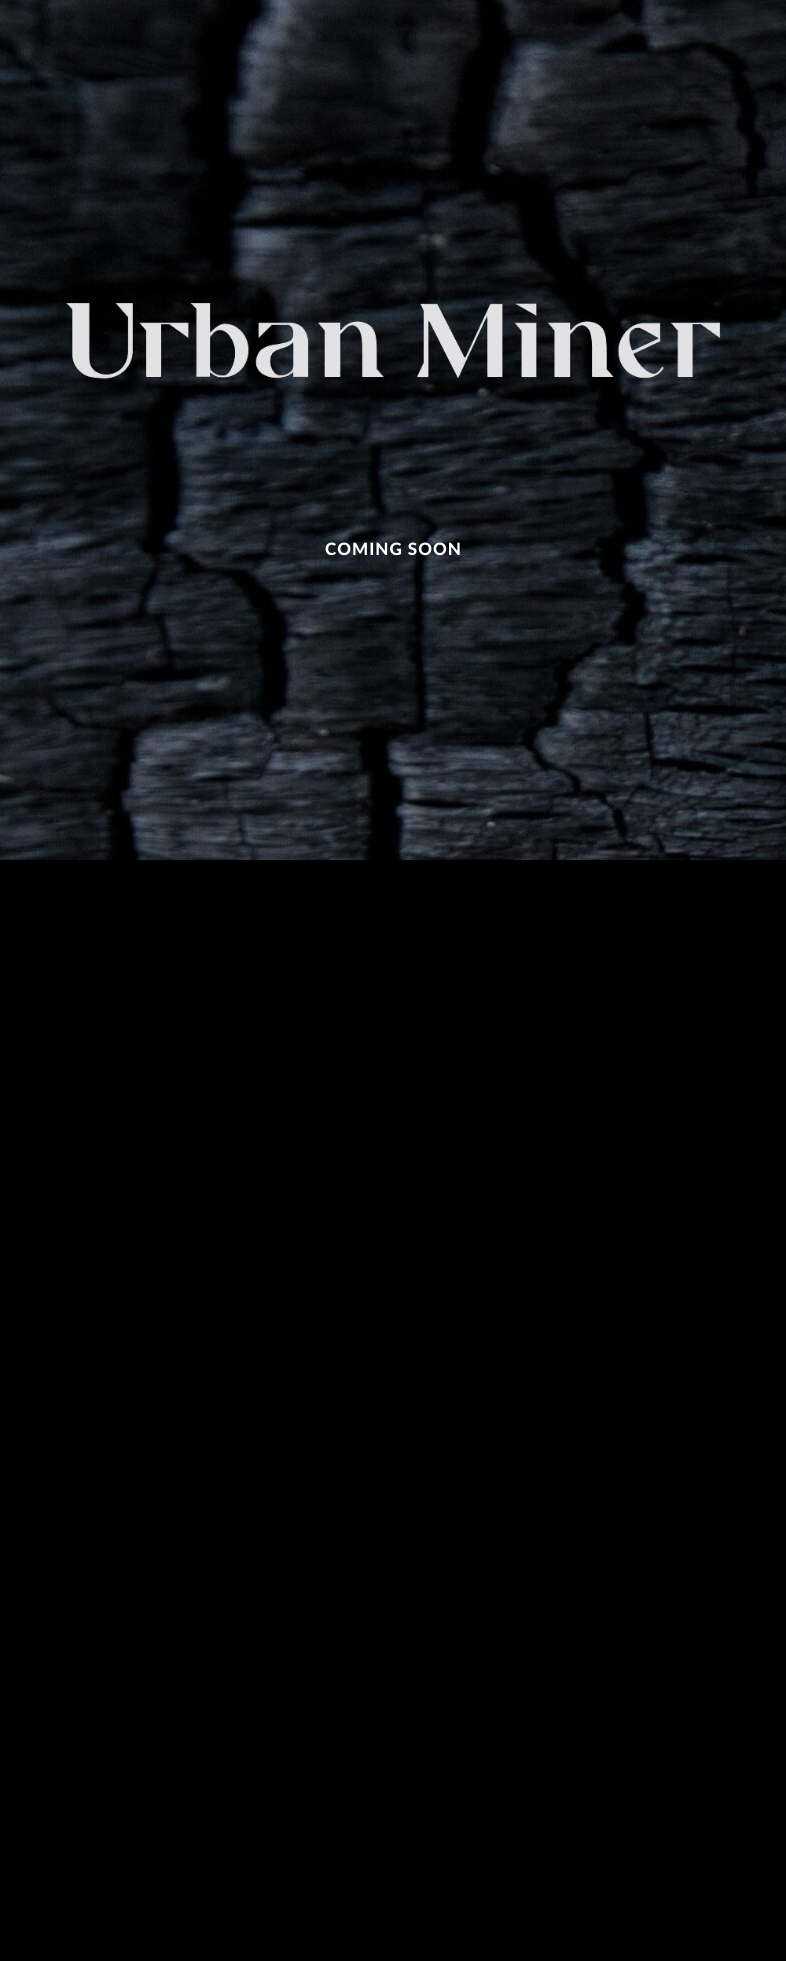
import math
import cairo

surface = cairo.ImageSurface(cairo.FORMAT_RGB24, 786, 1961)
cr = cairo.Context(surface)
options = cairo.FontOptions()
options.set_hint_metrics(cairo.HINT_METRICS_OFF)
options.set_hint_style(cairo.HINT_STYLE_NONE)
cr.set_font_options(options)
cr.set_miter_limit(4)


def rgb(code):
    cr.set_source_rgb(*(v / 255 for v in bytes.fromhex(code[-6:])))


def tracked(x, y, s, letter, word):
    cr.move_to(x, y)
    for ch in s:
        cr.show_text(ch)
        cr.rel_move_to(letter + word * (ch == ' '), 0)


def image(path, x, y, w, h):
    cr.save()
    cr.set_source_surface(cairo.ImageSurface.create_from_png(path), x, y)
    cr.rectangle(x, y, w, h)
    cr.fill()
    cr.restore()


rgb("#000000")
cr.paint()
image("img/1.png", 0, 0, 786, 860)
image("img/2.png", 66, 303, 654, 76)
cr.select_font_face("Lato Black")
cr.set_font_size(17)
rgb("#ffffff")
tracked(325, 555, "COMING SOON", 1, 0)
surface.write_to_png("page.png")
